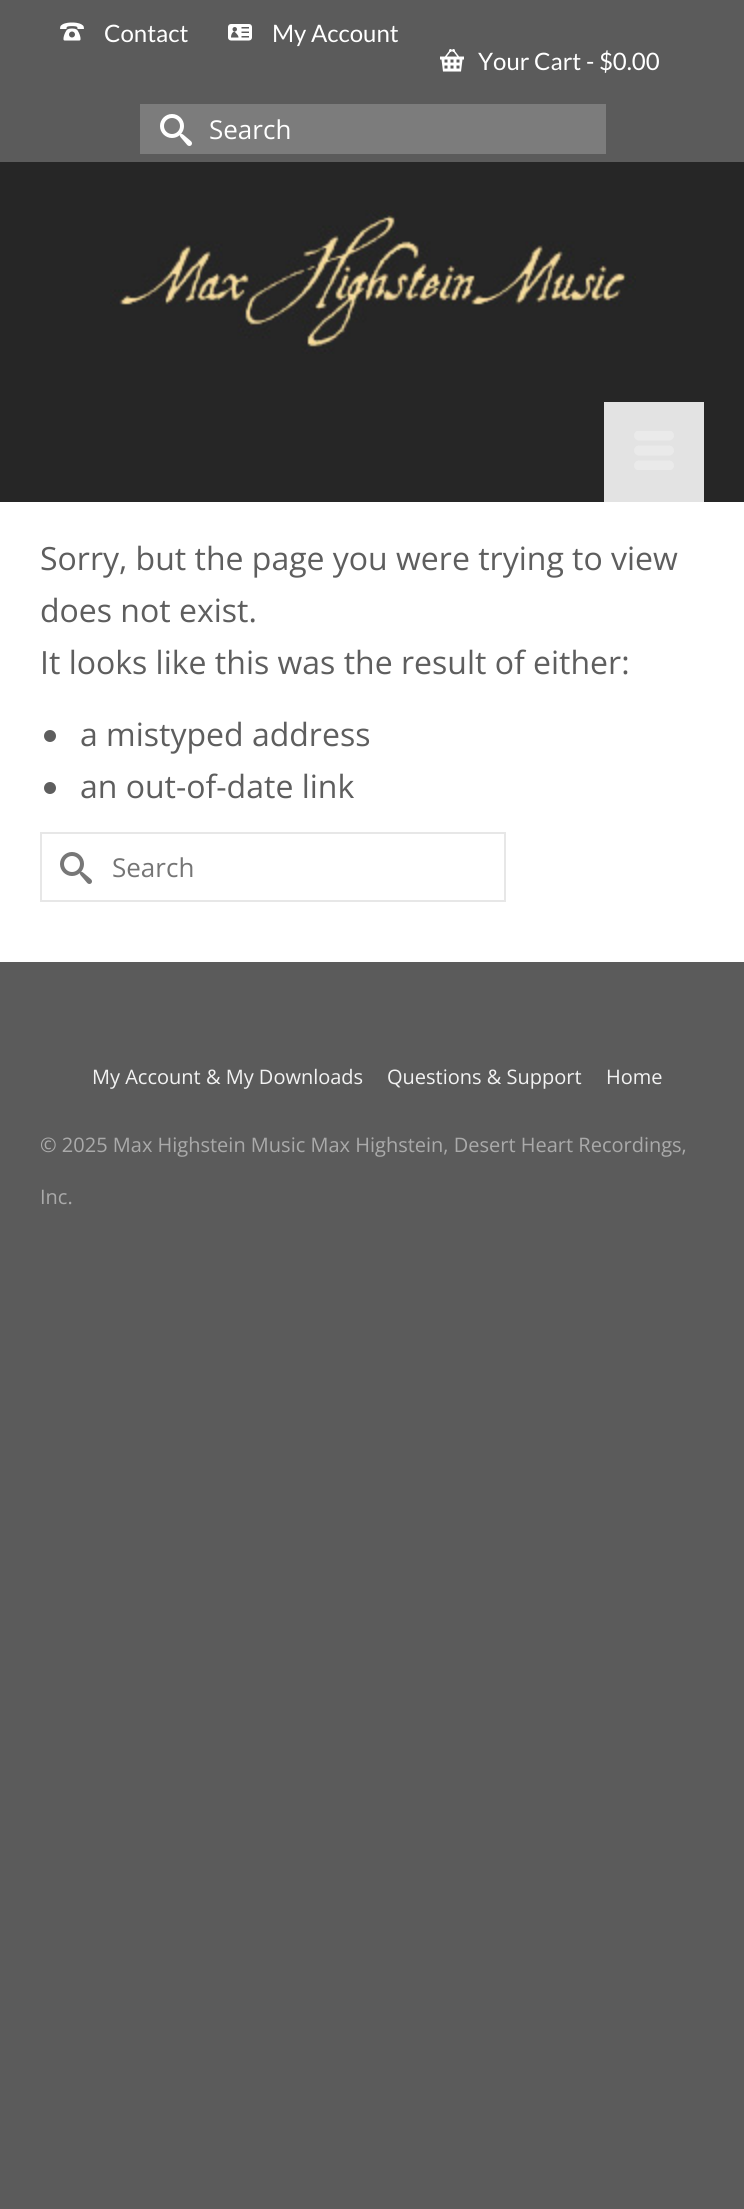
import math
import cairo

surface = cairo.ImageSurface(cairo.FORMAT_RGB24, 744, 2209)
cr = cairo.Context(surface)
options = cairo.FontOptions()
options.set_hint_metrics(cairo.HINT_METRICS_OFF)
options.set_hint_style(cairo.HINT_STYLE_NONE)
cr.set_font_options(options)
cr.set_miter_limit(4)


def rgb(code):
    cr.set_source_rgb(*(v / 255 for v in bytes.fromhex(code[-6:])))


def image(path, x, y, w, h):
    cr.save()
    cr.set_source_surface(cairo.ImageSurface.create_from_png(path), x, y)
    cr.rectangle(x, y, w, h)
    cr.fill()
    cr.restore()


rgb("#5b5b5b")
cr.paint()
rgb("#262626")
cr.rectangle(0, 162, 744, 340)
cr.fill()
image("img/1.png", 60, 22, 24, 19)
image("img/2.png", 228, 24, 24, 17)
image("img/3.png", 440, 49, 24, 23)
rgb("#7c7c7c")
cr.rectangle(140, 104, 466, 50)
cr.fill()
image("img/4.png", 160, 114, 32, 32)
image("img/5.png", 110, 210, 526, 144)
rgb("#e3e3e3")
cr.rectangle(604, 402, 100, 100)
cr.fill()
image("img/6.png", 634, 431, 40, 39)
rgb("#ffffff")
cr.rectangle(0, 502, 744, 460)
cr.fill()
rgb("#5e5e5e")
cr.arc(50, 736, 6, 0, 2 * math.pi)
cr.fill()
cr.arc(50, 788, 6, 0, 2 * math.pi)
cr.fill()
cr.rectangle(41, 833, 464, 68)
rgb("#e7e7e7")
cr.stroke()
image("img/7.png", 60, 852, 32, 32)
cr.select_font_face("Lato")
cr.set_font_size(24)
rgb("#ffffff")
for x, y, s in [
    (104, 42, "Contact"),
    (272, 42, "My Account"),
    (478, 70, "Your Cart - $0.00"),
]:
    cr.move_to(x, y)
    cr.show_text(s)
cr.select_font_face("Open Sans")
cr.set_font_size(26)
cr.move_to(209, 139)
cr.show_text("Search")
cr.set_font_size(32)
rgb("#5e5e5e")
for x, y, s in [
    (40, 570, "Sorry, but the page you were trying to view"),
    (40, 622, "does not exist."),
    (40, 674, "It looks like this was the result of either:"),
    (80, 746, "a mistyped address"),
    (80, 798, "an out-of-date link"),
]:
    cr.move_to(x, y)
    cr.show_text(s)
cr.set_font_size(26)
rgb("#757575")
cr.move_to(112, 877)
cr.show_text("Search")
cr.set_font_size(20)
rgb("#f2f2f2")
for x, y, s in [
    (92, 1084, "My Account & My Downloads"),
    (387, 1084, "Questions & Support"),
    (606, 1084, "Home"),
]:
    cr.move_to(x, y)
    cr.show_text(s)
rgb("#aaaaaa")
cr.move_to(40, 1152)
cr.show_text("© 2025 Max Highstein Music Max Highstein, Desert Heart Recordings,")
cr.move_to(40, 1204)
cr.show_text("Inc.")
surface.write_to_png("page.png")
